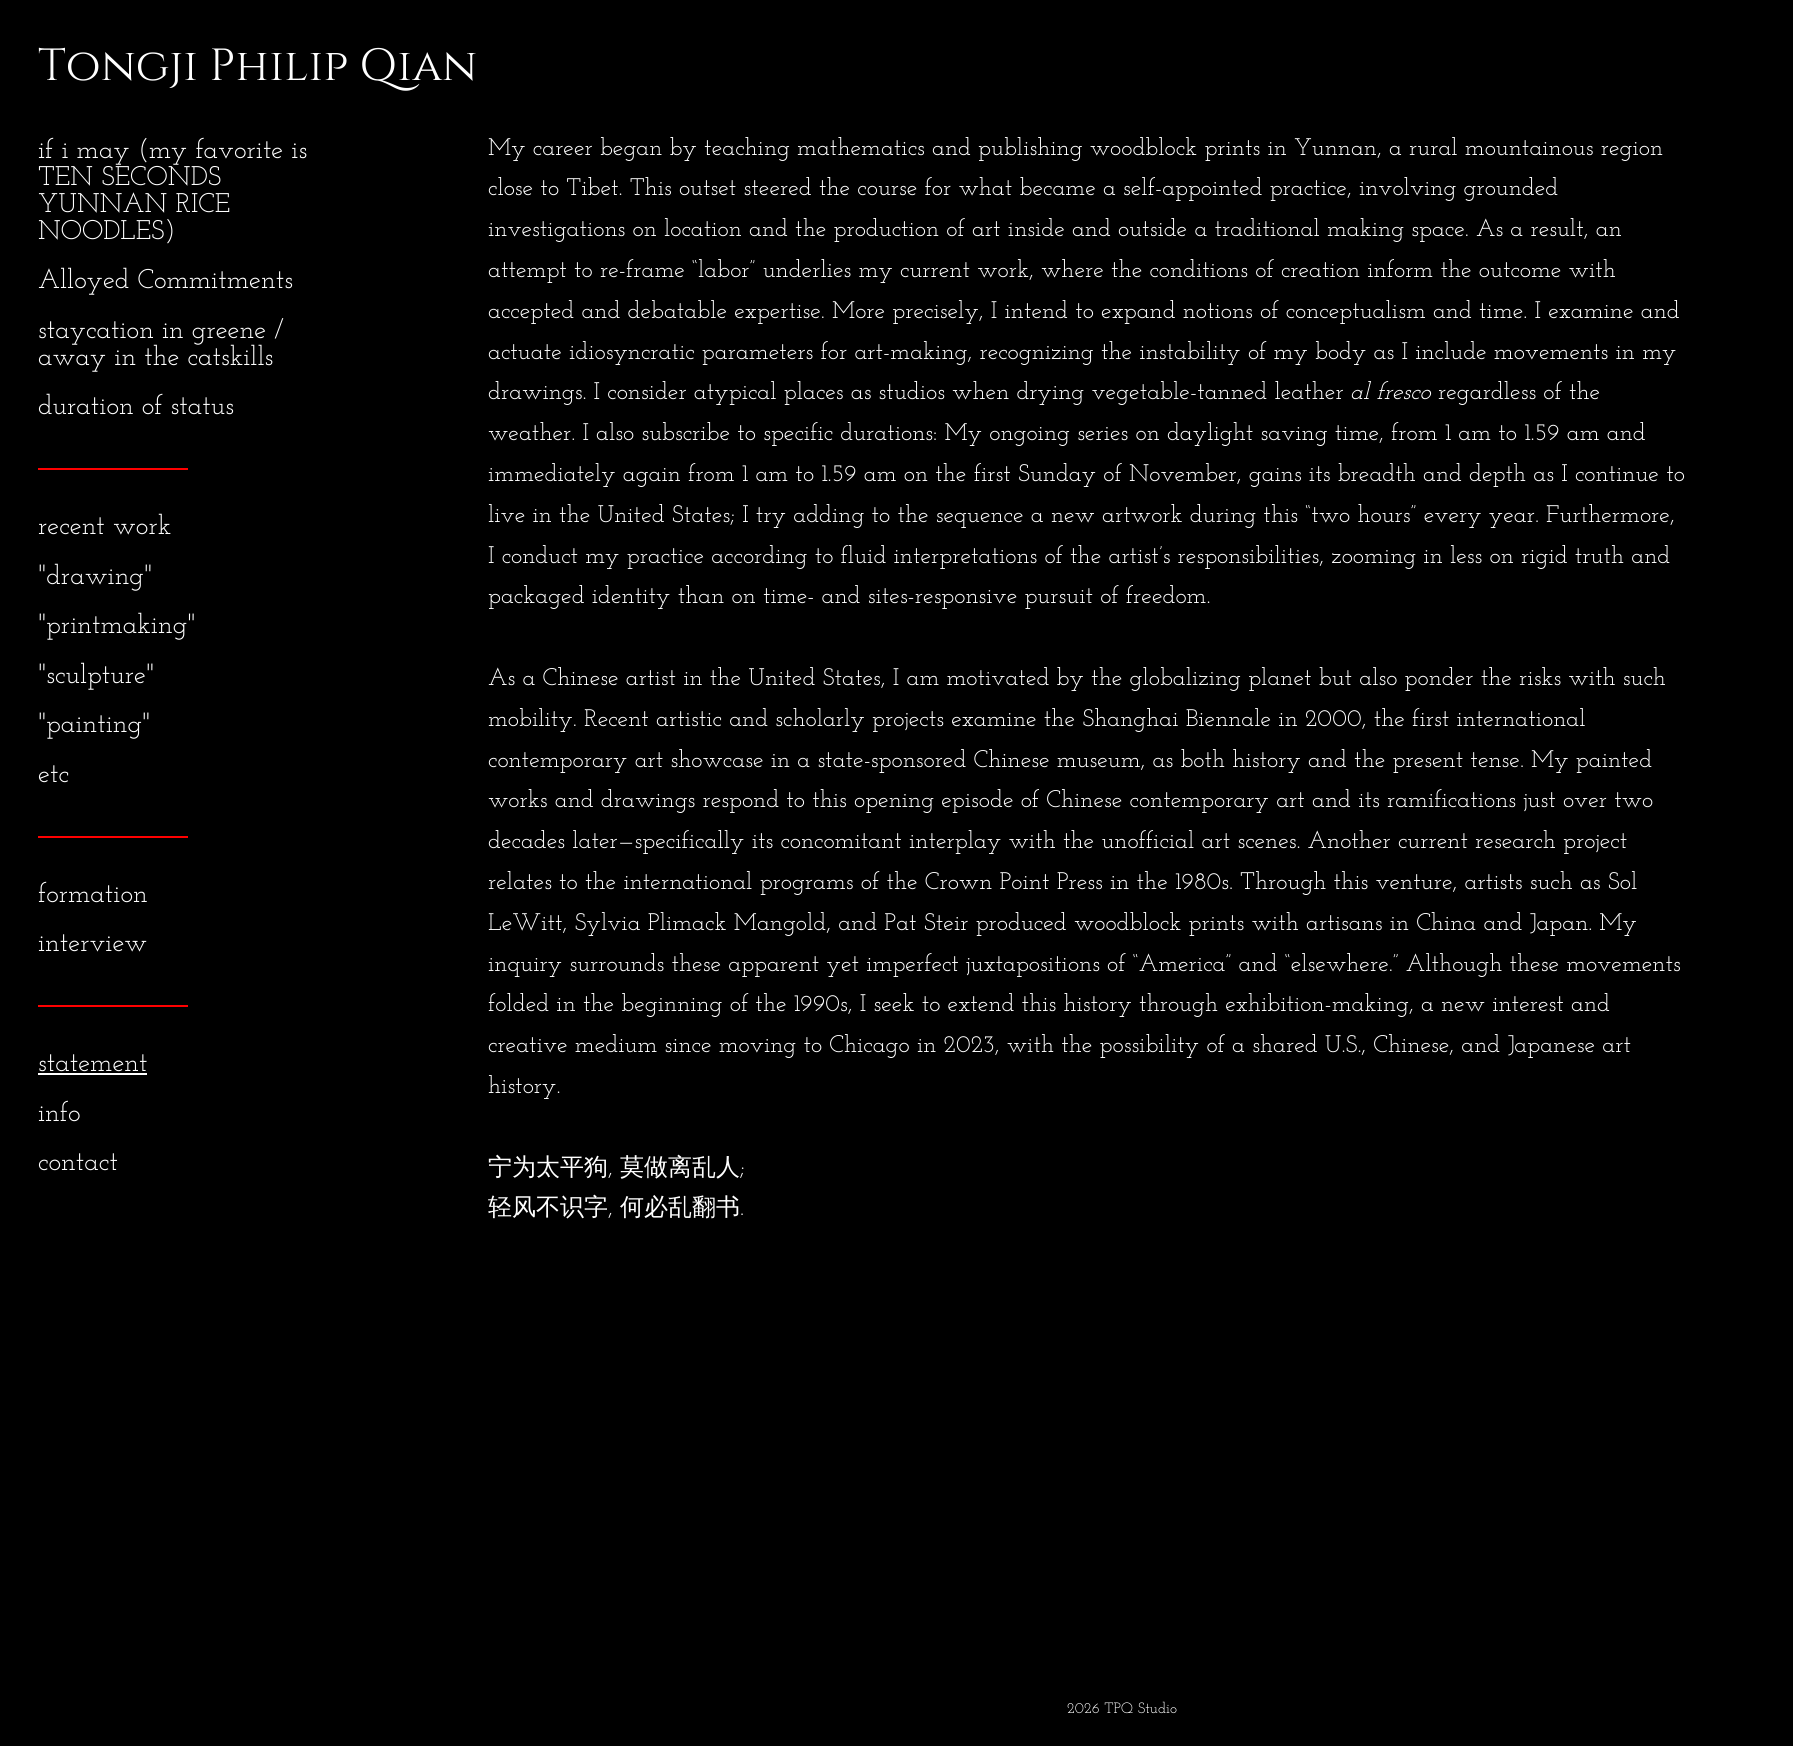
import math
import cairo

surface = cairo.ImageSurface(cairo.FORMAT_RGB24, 1793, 1746)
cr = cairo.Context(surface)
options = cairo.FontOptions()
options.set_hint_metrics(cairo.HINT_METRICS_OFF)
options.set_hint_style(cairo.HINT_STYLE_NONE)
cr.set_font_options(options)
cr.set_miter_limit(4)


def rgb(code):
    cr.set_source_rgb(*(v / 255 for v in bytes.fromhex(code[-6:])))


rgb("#000000")
cr.paint()
for x, y, w, h, color in [
    (38, 468, 150, 2, "#ff0000"),
    (38, 836, 150, 2, "#ff0000"),
    (38, 1005, 150, 2, "#ff0000"),
    (38, 1073, 109, 2, "#ffffff"),
]:
    rgb(color)
    cr.rectangle(x, y, w, h)
    cr.fill()
cr.select_font_face("Cinzel")
cr.set_font_size(45)
cr.move_to(38, 80)
cr.show_text("Tongji Philip Qian")
cr.select_font_face("Josefin Slab Thin")
cr.set_font_size(27)
for x, y, s in [
    (38, 158, "if i may (my favorite is"),
    (38, 185, "TEN SECONDS"),
    (38, 212, "YUNNAN RICE"),
    (38, 239, "NOODLES)"),
    (38, 288, "Alloyed Commitments"),
    (38, 338, "staycation in greene /"),
    (38, 365, "away in the catskills"),
    (38, 414, "duration of status"),
    (38, 534, "recent work"),
    (38, 584, "\"drawing\""),
    (38, 633, "\"printmaking\""),
    (38, 683, "\"sculpture\""),
    (38, 732, "\"painting\""),
    (38, 782, "etc"),
    (38, 902, "formation"),
    (38, 951, "interview"),
    (38, 1071, "statement"),
    (38, 1121, "info"),
    (38, 1170, "contact"),
]:
    cr.move_to(x, y)
    cr.show_text(s)
cr.set_font_size(24)
for x, y, s in [
    (488, 155, "My career began by teaching mathematics and publishing woodblock prints in Yunnan, a rural mountainous region"),
    (488, 195, "close to Tibet. This outset steered the course for what became a self-appointed practice, involving grounded"),
    (488, 236, "investigations on location and the production of art inside and outside a traditional making space. As a result, an"),
    (488, 277, "attempt to re-frame “labor” underlies my current work, where the conditions of creation inform the outcome with"),
    (488, 318, "accepted and debatable expertise. More precisely, I intend to expand notions of conceptualism and time. I examine and"),
    (488, 359, "actuate idiosyncratic parameters for art-making, recognizing the instability of my body as I include movements in my"),
    (488, 399, "drawings. I consider atypical places as studios when drying vegetable-tanned leather"),
]:
    cr.move_to(x, y)
    cr.show_text(s)
cr.select_font_face("Josefin Slab Thin", cairo.FONT_SLANT_ITALIC)
cr.move_to(1350, 399)
cr.show_text("al fresco")
cr.select_font_face("Josefin Slab Thin")
for x, y, s in [
    (1438, 399, "regardless of the"),
    (488, 440, "weather. I also subscribe to specific durations: My ongoing series on daylight saving time, from 1 am to 1.59 am and"),
    (488, 481, "immediately again from 1 am to 1.59 am on the first Sunday of November, gains its breadth and depth as I continue to"),
    (488, 522, "live in the United States; I try adding to the sequence a new artwork during this “two hours” every year. Furthermore,"),
    (488, 563, "I conduct my practice according to fluid interpretations of the artist’s responsibilities, zooming in less on rigid truth and"),
    (488, 603, "packaged identity than on time- and sites-responsive pursuit of freedom."),
    (488, 685, "As a Chinese artist in the United States, I am motivated by the globalizing planet but also ponder the risks with such"),
    (488, 726, "mobility. Recent artistic and scholarly projects examine the Shanghai Biennale in 2000, the first international"),
    (488, 767, "contemporary art showcase in a state-sponsored Chinese museum, as both history and the present tense. My painted"),
    (488, 807, "works and drawings respond to this opening episode of Chinese contemporary art and its ramifications just over two"),
    (488, 848, "decades later—specifically its concomitant interplay with the unofficial art scenes. Another current research project"),
    (488, 889, "relates to the international programs of the Crown Point Press in the 1980s. Through this venture, artists such as Sol"),
    (488, 930, "LeWitt, Sylvia Plimack Mangold, and Pat Steir produced woodblock prints with artisans in China and Japan. My"),
    (488, 971, "inquiry surrounds these apparent yet imperfect juxtapositions of “America” and “elsewhere.” Although these movements"),
    (488, 1011, "folded in the beginning of the 1990s, I seek to extend this history through exhibition-making, a new interest and"),
    (488, 1052, "creative medium since moving to Chicago in 2023, with the possibility of a shared U.S., Chinese, and Japanese art"),
    (488, 1093, "history."),
]:
    cr.move_to(x, y)
    cr.show_text(s)
cr.select_font_face("WenQuanYi Zen Hei Medium")
cr.move_to(488, 1175)
cr.show_text("宁为太平狗")
cr.select_font_face("Josefin Slab Thin")
cr.move_to(608, 1175)
cr.show_text(",")
cr.select_font_face("WenQuanYi Zen Hei Medium")
cr.move_to(620, 1175)
cr.show_text("莫做离乱人")
cr.select_font_face("Josefin Slab Thin")
cr.move_to(740, 1175)
cr.show_text(";")
cr.select_font_face("WenQuanYi Zen Hei Medium")
cr.move_to(488, 1215)
cr.show_text("轻风不识字")
cr.select_font_face("Josefin Slab Thin")
cr.move_to(608, 1215)
cr.show_text(",")
cr.select_font_face("WenQuanYi Zen Hei Medium")
cr.move_to(620, 1215)
cr.show_text("何必乱翻书")
cr.select_font_face("Josefin Slab Thin")
cr.move_to(740, 1215)
cr.show_text(".")
cr.set_font_size(15)
cr.move_to(1067, 1713)
cr.show_text("2026 TPQ Studio")
surface.write_to_png("page.png")
